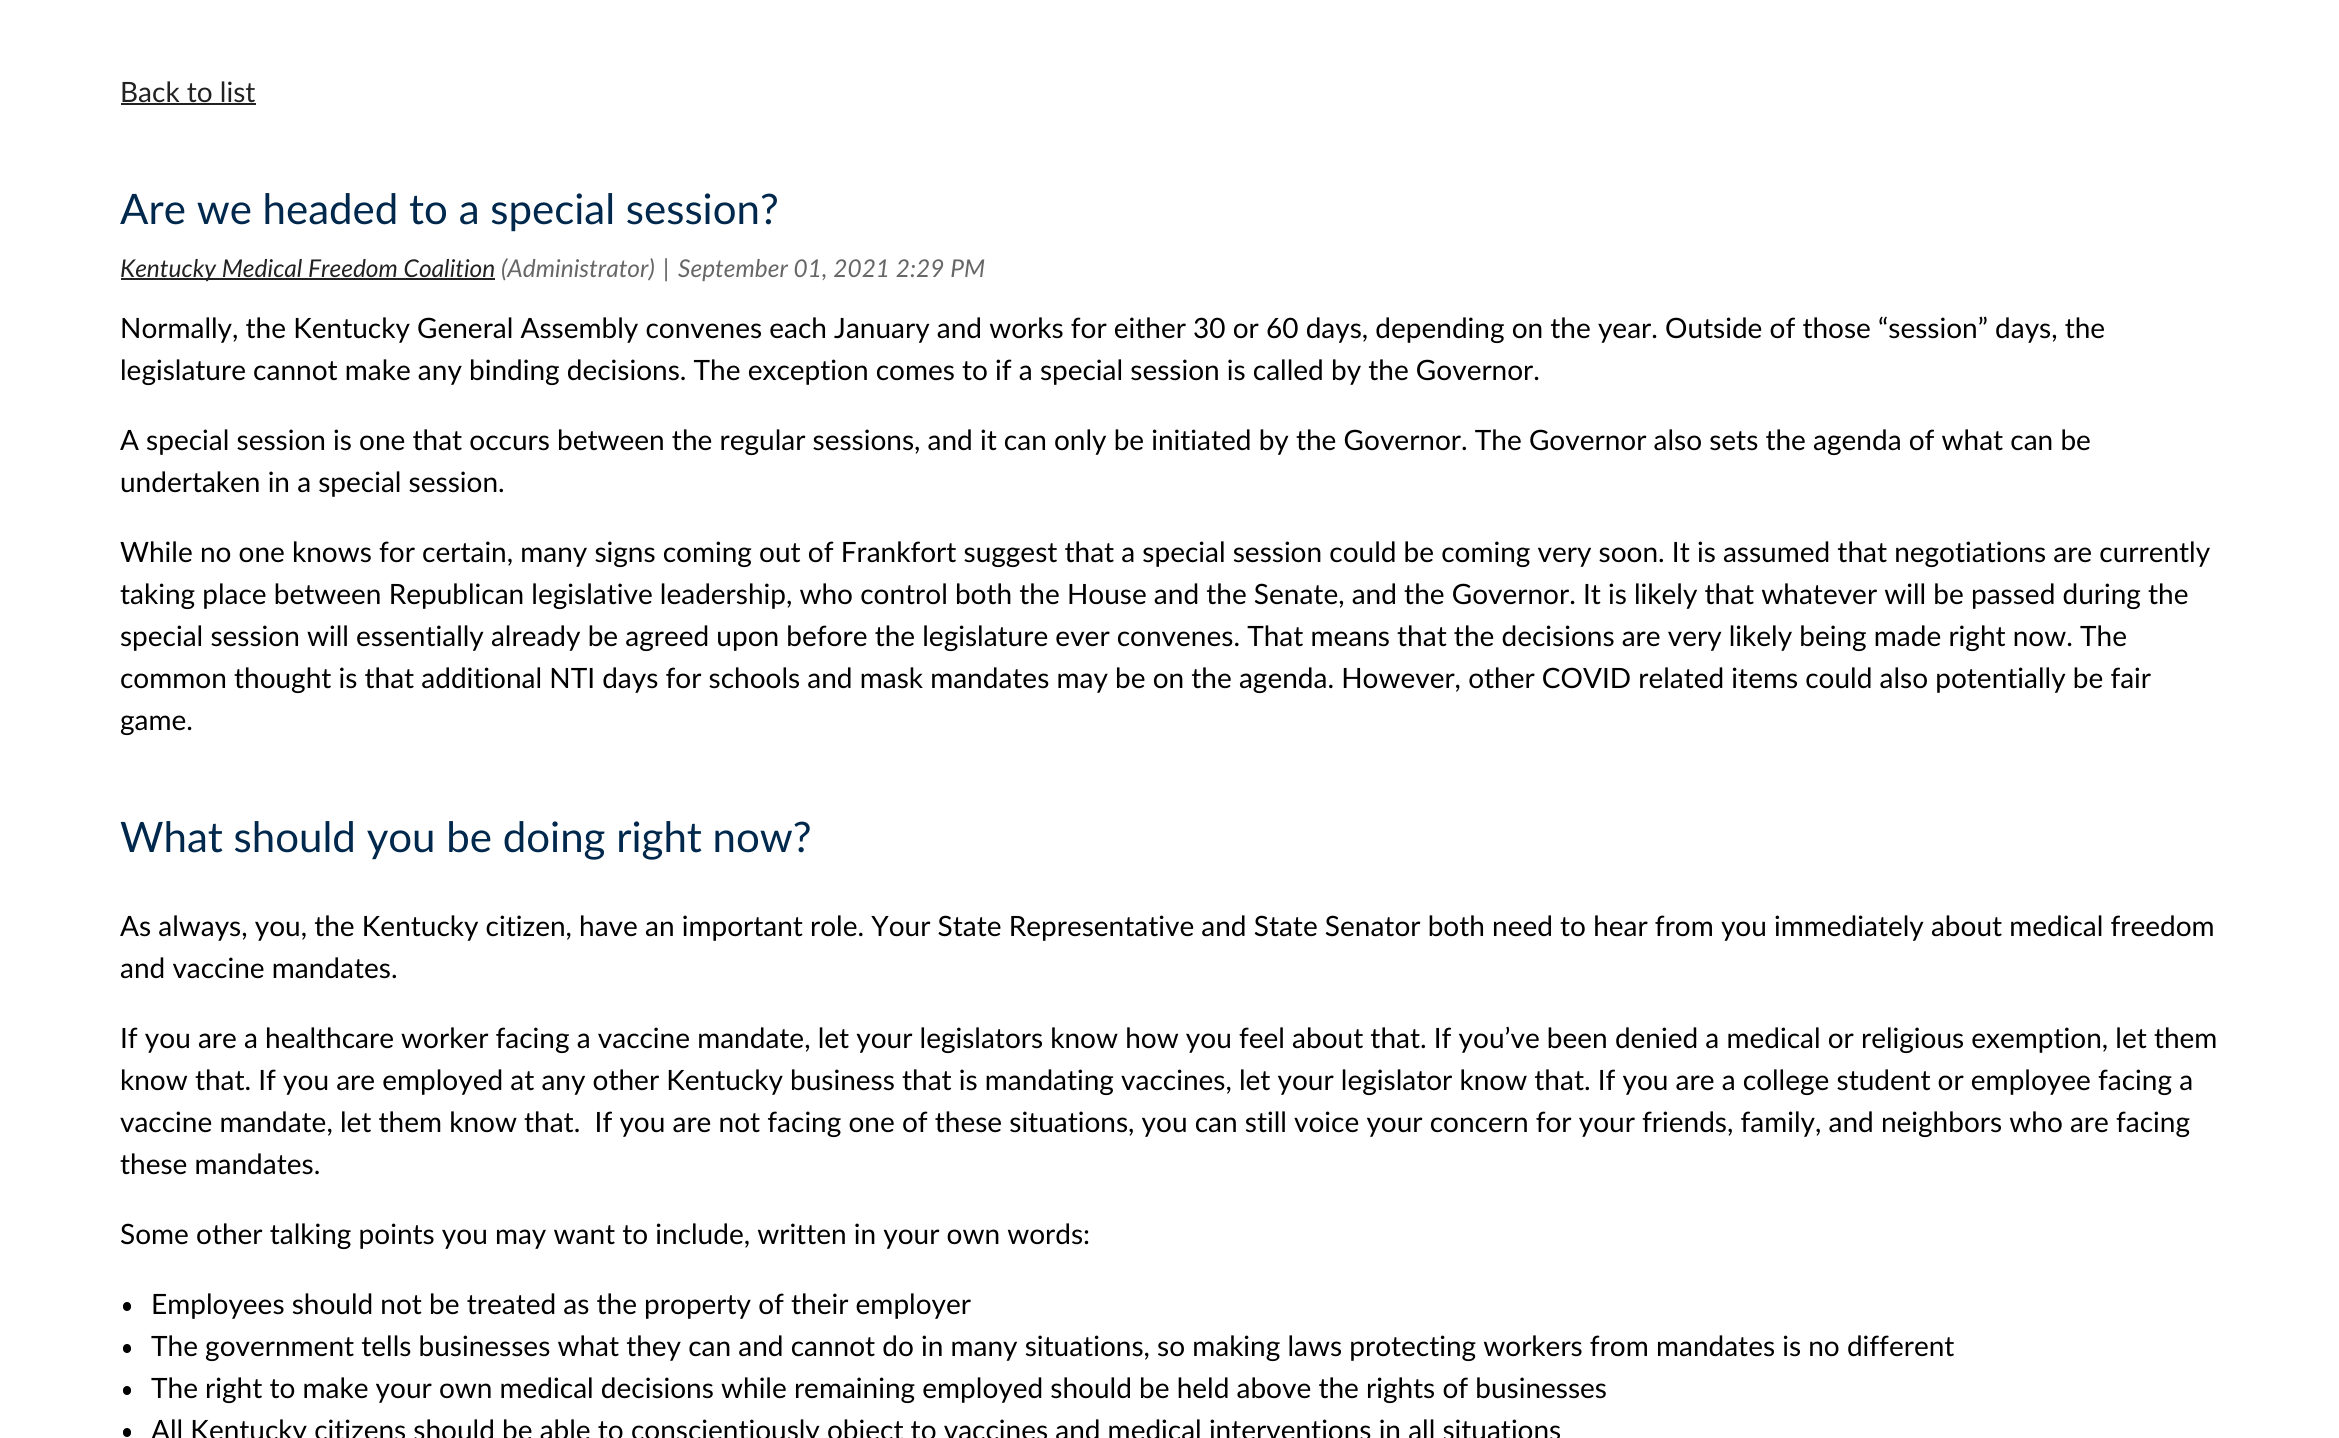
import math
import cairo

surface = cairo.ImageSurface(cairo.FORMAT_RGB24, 2339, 1438)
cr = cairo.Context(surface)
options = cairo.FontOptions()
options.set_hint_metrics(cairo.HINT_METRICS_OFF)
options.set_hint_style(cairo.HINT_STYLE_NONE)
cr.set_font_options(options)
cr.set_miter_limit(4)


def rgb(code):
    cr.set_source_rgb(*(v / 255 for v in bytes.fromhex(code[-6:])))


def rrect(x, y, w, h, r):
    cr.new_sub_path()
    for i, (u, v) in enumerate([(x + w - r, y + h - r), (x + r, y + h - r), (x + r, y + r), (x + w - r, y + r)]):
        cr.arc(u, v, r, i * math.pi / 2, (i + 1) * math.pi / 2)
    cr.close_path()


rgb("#ffffff")
cr.paint()
rgb("#222222")
cr.rectangle(121, 103, 135, 2)
cr.fill()
cr.rectangle(121, 278, 374, 2)
cr.fill()
rgb("#000000")
rrect(123, 1302, 8, 9, 4)
cr.fill()
rrect(123, 1344, 8, 9, 4)
cr.fill()
rrect(123, 1386, 8, 9, 4)
cr.fill()
rrect(123, 1428, 8, 9, 4)
cr.fill()
cr.select_font_face("Lato")
cr.set_font_size(28)
rgb("#222222")
cr.move_to(120, 102)
cr.show_text("Back to list")
cr.set_font_size(42)
rgb("#00284c")
cr.move_to(120, 224)
cr.show_text("Are we headed to a special session?")
cr.select_font_face("Lato", cairo.FONT_SLANT_ITALIC)
cr.set_font_size(24.5)
rgb("#222222")
cr.move_to(120, 277)
cr.show_text("Kentucky Medical Freedom Coalition")
rgb("#676767")
cr.move_to(501, 277)
cr.show_text("(Administrator)")
cr.select_font_face("Lato")
cr.move_to(663, 277)
cr.show_text("|")
cr.select_font_face("Lato", cairo.FONT_SLANT_ITALIC)
cr.move_to(678, 277)
cr.show_text("September 01, 2021 2:29 PM")
cr.select_font_face("Lato")
cr.set_font_size(28)
rgb("#000000")
for x, y, s in [
    (120, 338, "Normally, the Kentucky General Assembly convenes each January and works for either 30 or 60 days, depending on the year. Outside of those “session” days, the"),
    (120, 380, "legislature cannot make any binding decisions. The exception comes to if a special session is called by the Governor."),
    (120, 450, "A special session is one that occurs between the regular sessions, and it can only be initiated by the Governor. The Governor also sets the agenda of what can be"),
    (120, 492, "undertaken in a special session."),
    (120, 562, "While no one knows for certain, many signs coming out of Frankfort suggest that a special session could be coming very soon. It is assumed that negotiations are currently"),
    (120, 604, "taking place between Republican legislative leadership, who control both the House and the Senate, and the Governor. It is likely that whatever will be passed during the"),
    (120, 646, "special session will essentially already be agreed upon before the legislature ever convenes. That means that the decisions are very likely being made right now. The"),
    (120, 688, "common thought is that additional NTI days for schools and mask mandates may be on the agenda. However, other COVID related items could also potentially be fair"),
    (120, 730, "game."),
]:
    cr.move_to(x, y)
    cr.show_text(s)
cr.set_font_size(42)
rgb("#00284c")
cr.move_to(120, 852)
cr.show_text("What should you be doing right now?")
cr.set_font_size(28)
rgb("#000000")
for x, y, s in [
    (120, 936, "As always, you, the Kentucky citizen, have an important role. Your State Representative and State Senator both need to hear from you immediately about medical freedom"),
    (120, 978, "and vaccine mandates."),
    (120, 1048, "If you are a healthcare worker facing a vaccine mandate, let your legislators know how you feel about that. If you’ve been denied a medical or religious exemption, let them"),
    (120, 1090, "know that. If you are employed at any other Kentucky business that is mandating vaccines, let your legislator know that. If you are a college student or employee facing a"),
    (120, 1132, "vaccine mandate, let them know that.  If you are not facing one of these situations, you can still voice your concern for your friends, family, and neighbors who are facing"),
    (120, 1174, "these mandates."),
    (120, 1244, "Some other talking points you may want to include, written in your own words:"),
    (151, 1314, "Employees should not be treated as the property of their employer"),
    (151, 1356, "The government tells businesses what they can and cannot do in many situations, so making laws protecting workers from mandates is no different"),
    (151, 1398, "The right to make your own medical decisions while remaining employed should be held above the rights of businesses"),
    (151, 1440, "All Kentucky citizens should be able to conscientiously object to vaccines and medical interventions in all situations"),
]:
    cr.move_to(x, y)
    cr.show_text(s)
surface.write_to_png("page.png")
